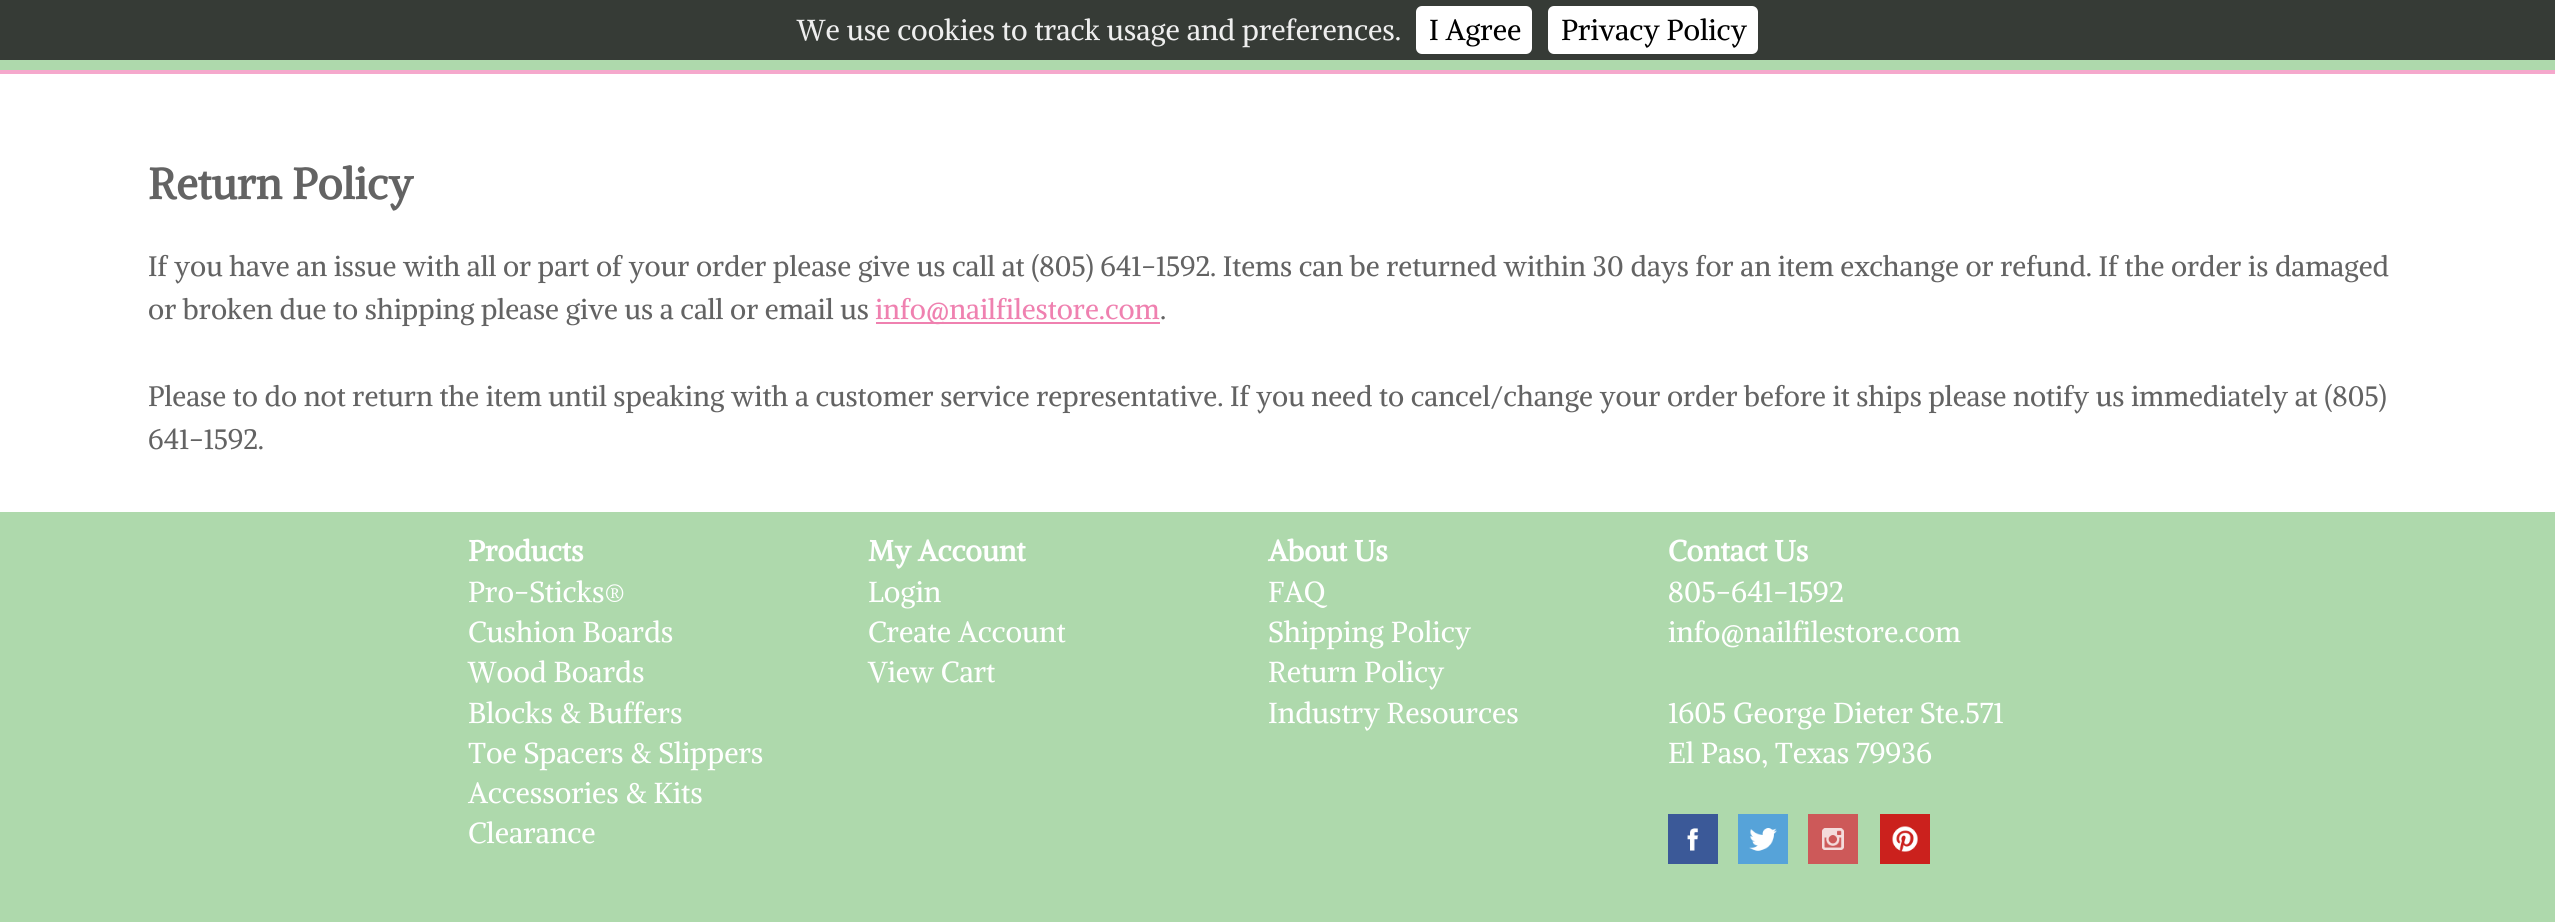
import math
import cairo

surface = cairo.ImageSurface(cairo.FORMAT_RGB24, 2555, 922)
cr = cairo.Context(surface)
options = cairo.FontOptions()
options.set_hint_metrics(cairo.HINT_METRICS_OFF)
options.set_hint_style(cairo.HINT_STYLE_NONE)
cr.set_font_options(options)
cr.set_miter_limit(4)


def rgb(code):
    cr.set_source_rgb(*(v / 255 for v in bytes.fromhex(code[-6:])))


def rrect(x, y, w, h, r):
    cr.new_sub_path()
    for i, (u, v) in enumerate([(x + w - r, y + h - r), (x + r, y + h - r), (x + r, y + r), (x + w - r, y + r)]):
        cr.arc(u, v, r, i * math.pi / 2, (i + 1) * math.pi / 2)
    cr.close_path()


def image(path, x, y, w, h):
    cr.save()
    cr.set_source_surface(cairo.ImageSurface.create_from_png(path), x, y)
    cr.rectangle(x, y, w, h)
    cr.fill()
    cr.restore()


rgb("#ffffff")
cr.paint()
for x, y, w, h, color in [
    (0, 60, 2555, 10, "#aed9ac"),
    (0, 0, 2555, 60, "#363b36"),
    (0, 70, 2555, 4, "#f5a8cc"),
]:
    rgb(color)
    cr.rectangle(x, y, w, h)
    cr.fill()
rgb("#ffffff")
rrect(1416, 6, 116, 48, 6)
cr.fill()
rrect(1548, 6, 210, 48, 6)
cr.fill()
rgb("#ef81b0")
cr.rectangle(876, 322, 284, 2)
cr.fill()
rgb("#aed9ac")
cr.rectangle(0, 512, 2555, 410)
cr.fill()
image("img/1.png", 1668, 814, 50, 50)
image("img/2.png", 1738, 814, 50, 50)
image("img/3.png", 1808, 814, 50, 50)
image("img/4.png", 1880, 814, 50, 50)
cr.select_font_face("Alike")
cr.set_font_size(28.8)
rgb("#eeeeee")
cr.move_to(797, 40)
cr.show_text("We use cookies to track usage and preferences.")
rgb("#000000")
cr.move_to(1429, 40)
cr.show_text("I Agree")
cr.move_to(1561, 40)
cr.show_text("Privacy Policy")
cr.select_font_face("Alike", cairo.FONT_SLANT_NORMAL, cairo.FONT_WEIGHT_BOLD)
cr.set_font_size(43.25)
rgb("#636363")
cr.move_to(148, 199)
cr.show_text("Return Policy")
cr.select_font_face("Alike")
cr.set_font_size(28)
cr.move_to(148, 276)
cr.show_text("If you have an issue with all or part of your order please give us call at (805) 641-1592. Items can be returned within 30 days for an item exchange or refund. If the order is damaged")
cr.move_to(148, 319)
cr.show_text("or broken due to shipping please give us a call or email us")
rgb("#ef81b0")
cr.move_to(875, 319)
cr.show_text("info@nailfilestore.com")
rgb("#636363")
for x, y, s in [
    (1160, 319, "."),
    (148, 406, "Please to do not return the item until speaking with a customer service representative. If you need to cancel/change your order before it ships please notify us immediately at (805)"),
    (148, 449, "641-1592."),
]:
    cr.move_to(x, y)
    cr.show_text(s)
cr.select_font_face("Alike", cairo.FONT_SLANT_NORMAL, cairo.FONT_WEIGHT_BOLD)
cr.set_font_size(28.8)
rgb("#ffffff")
cr.move_to(468, 561)
cr.show_text("Products")
cr.select_font_face("Alike")
for x, y, s in [
    (468, 602, "Pro-Sticks®"),
    (468, 642, "Cushion Boards"),
    (468, 682, "Wood Boards"),
    (468, 723, "Blocks & Buffers"),
    (468, 763, "Toe Spacers & Slippers"),
    (468, 803, "Accessories & Kits"),
    (468, 843, "Clearance"),
]:
    cr.move_to(x, y)
    cr.show_text(s)
cr.select_font_face("Alike", cairo.FONT_SLANT_NORMAL, cairo.FONT_WEIGHT_BOLD)
cr.move_to(868, 561)
cr.show_text("My Account")
cr.select_font_face("Alike")
for x, y, s in [
    (868, 602, "Login"),
    (868, 642, "Create Account"),
    (868, 682, "View Cart"),
]:
    cr.move_to(x, y)
    cr.show_text(s)
cr.select_font_face("Alike", cairo.FONT_SLANT_NORMAL, cairo.FONT_WEIGHT_BOLD)
cr.move_to(1268, 561)
cr.show_text("About Us")
cr.select_font_face("Alike")
for x, y, s in [
    (1268, 602, "FAQ"),
    (1268, 642, "Shipping Policy"),
    (1268, 682, "Return Policy"),
    (1268, 723, "Industry Resources"),
]:
    cr.move_to(x, y)
    cr.show_text(s)
cr.select_font_face("Alike", cairo.FONT_SLANT_NORMAL, cairo.FONT_WEIGHT_BOLD)
cr.move_to(1668, 561)
cr.show_text("Contact Us")
cr.select_font_face("Alike")
for x, y, s in [
    (1668, 602, "805-641-1592"),
    (1668, 642, "info@nailfilestore.com"),
    (1668, 723, "1605 George Dieter Ste.571"),
    (1668, 763, "El Paso, Texas 79936"),
]:
    cr.move_to(x, y)
    cr.show_text(s)
surface.write_to_png("page.png")
